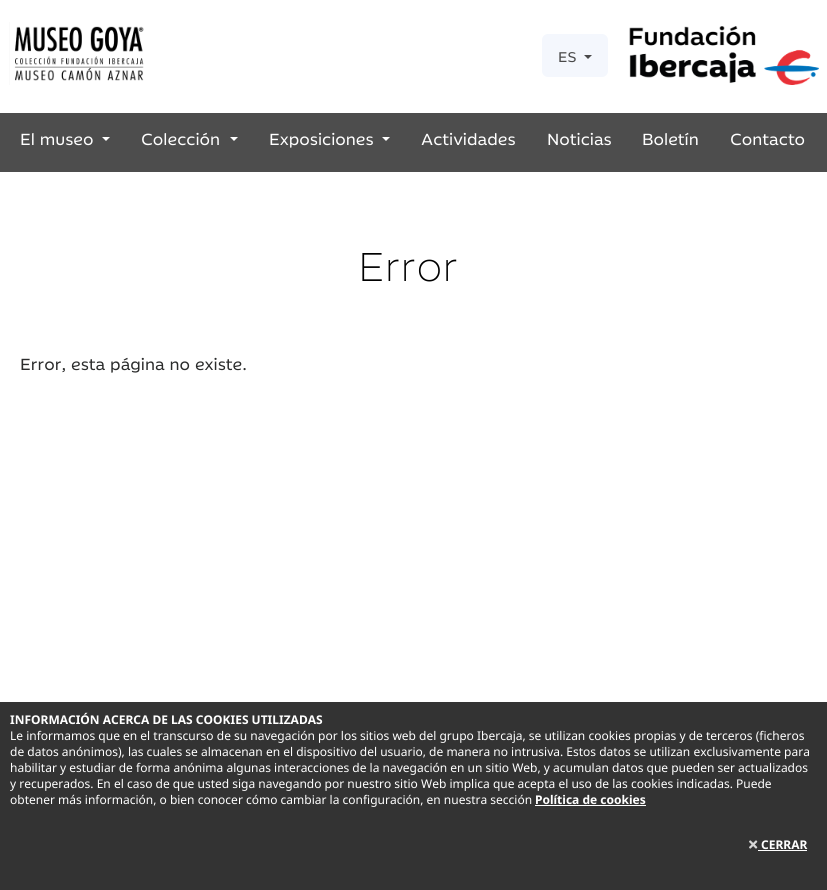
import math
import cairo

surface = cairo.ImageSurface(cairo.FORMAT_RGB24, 827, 890)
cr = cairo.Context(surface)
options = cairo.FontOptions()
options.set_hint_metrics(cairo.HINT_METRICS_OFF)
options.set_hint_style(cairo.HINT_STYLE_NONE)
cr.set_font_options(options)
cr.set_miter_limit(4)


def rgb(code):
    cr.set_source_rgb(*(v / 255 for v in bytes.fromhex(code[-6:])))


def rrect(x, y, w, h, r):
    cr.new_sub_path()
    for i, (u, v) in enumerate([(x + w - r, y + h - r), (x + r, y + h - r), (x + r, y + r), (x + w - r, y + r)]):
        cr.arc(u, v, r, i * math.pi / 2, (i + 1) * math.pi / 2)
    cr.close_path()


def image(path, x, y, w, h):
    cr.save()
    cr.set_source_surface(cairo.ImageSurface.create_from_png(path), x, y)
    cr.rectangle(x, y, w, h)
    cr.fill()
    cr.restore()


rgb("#ffffff")
cr.paint()
image("img/1.png", 9, 22, 135, 63)
rgb("#f4f7fd")
rrect(542, 34, 66, 43, 6)
cr.fill()
rgb("#494949")
cr.new_path()
cr.move_to(584, 55)
cr.line_to(592, 55)
cr.line_to(588, 59)
cr.close_path()
cr.fill()
image("img/2.png", 629, 26, 190, 59)
rgb("#333333")
cr.rectangle(0, 702, 827, 188)
cr.fill()
rgb("#ffffff")
cr.rectangle(535, 805, 111, 1)
cr.fill()
image("img/3.png", 749, 840, 9, 9)
cr.rectangle(758, 850, 49, 1)
cr.fill()
rgb("#4d4d4d")
cr.rectangle(0, 113, 827, 59)
cr.fill()
rgb("#ffffff")
cr.new_path()
cr.move_to(102, 137)
cr.line_to(110, 137)
cr.line_to(106, 141)
cr.close_path()
cr.fill()
cr.new_path()
cr.move_to(230, 137)
cr.line_to(238, 137)
cr.line_to(234, 141)
cr.close_path()
cr.fill()
cr.new_path()
cr.move_to(382, 137)
cr.line_to(390, 137)
cr.line_to(386, 141)
cr.close_path()
cr.fill()
cr.select_font_face("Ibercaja")
cr.set_font_size(14)
rgb("#494949")
cr.move_to(558, 62)
cr.show_text("ES")
cr.select_font_face("Noto Sans", cairo.FONT_SLANT_NORMAL, cairo.FONT_WEIGHT_BOLD)
cr.set_font_size(12)
rgb("#ffffff")
cr.move_to(10, 724)
cr.show_text("INFORMACIÓN ACERCA DE LAS COOKIES UTILIZADAS")
cr.select_font_face("Noto Sans")
for x, y, s in [
    (10, 740, "Le informamos que en el transcurso de su navegación por los sitios web del grupo Ibercaja, se utilizan cookies propias y de terceros (ficheros"),
    (10, 756, "de datos anónimos), las cuales se almacenan en el dispositivo del usuario, de manera no intrusiva. Estos datos se utilizan exclusivamente para"),
    (10, 772, "habilitar y estudiar de forma anónima algunas interacciones de la navegación en un sitio Web, y acumulan datos que pueden ser actualizados"),
    (10, 788, "y recuperados. En el caso de que usted siga navegando por nuestro sitio Web implica que acepta el uso de las cookies indicadas. Puede"),
    (10, 804, "obtener más información, o bien conocer cómo cambiar la configuración, en nuestra sección"),
]:
    cr.move_to(x, y)
    cr.show_text(s)
cr.select_font_face("Noto Sans", cairo.FONT_SLANT_NORMAL, cairo.FONT_WEIGHT_BOLD)
cr.move_to(535, 804)
cr.show_text("Política de cookies")
cr.move_to(761, 849)
cr.show_text("CERRAR")
cr.select_font_face("Ibercaja")
cr.set_font_size(16)
for x, y, s in [
    (20, 145, "El museo"),
    (141, 145, "Colección"),
    (269, 145, "Exposiciones"),
    (421, 145, "Actividades"),
    (547, 145, "Noticias"),
    (642, 145, "Boletín"),
    (730, 145, "Contacto"),
]:
    cr.move_to(x, y)
    cr.show_text(s)
cr.select_font_face("Ibercaja Light")
cr.set_font_size(40)
rgb("#000000")
cr.move_to(358, 281)
cr.show_text("Error")
cr.select_font_face("Ibercaja")
cr.set_font_size(16)
rgb("#2b2c2c")
cr.move_to(20, 370)
cr.show_text("Error, esta página no existe.")
surface.write_to_png("page.png")
